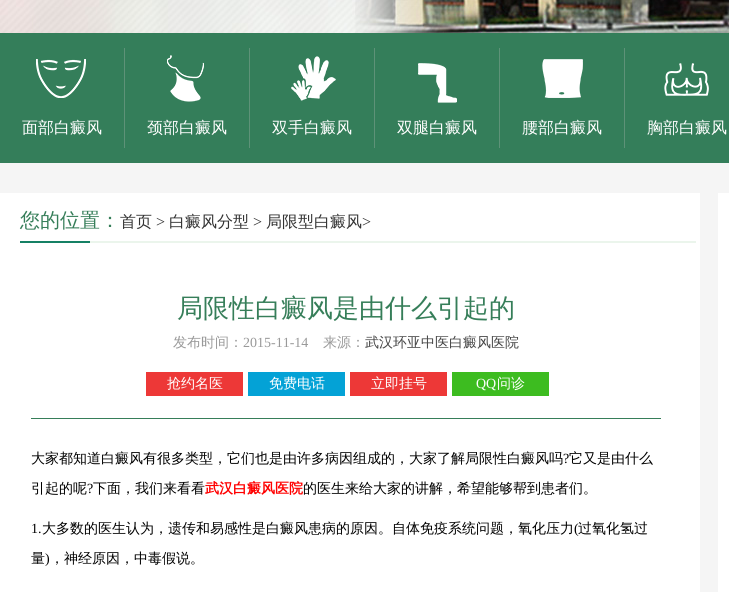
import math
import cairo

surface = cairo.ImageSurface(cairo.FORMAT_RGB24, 729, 592)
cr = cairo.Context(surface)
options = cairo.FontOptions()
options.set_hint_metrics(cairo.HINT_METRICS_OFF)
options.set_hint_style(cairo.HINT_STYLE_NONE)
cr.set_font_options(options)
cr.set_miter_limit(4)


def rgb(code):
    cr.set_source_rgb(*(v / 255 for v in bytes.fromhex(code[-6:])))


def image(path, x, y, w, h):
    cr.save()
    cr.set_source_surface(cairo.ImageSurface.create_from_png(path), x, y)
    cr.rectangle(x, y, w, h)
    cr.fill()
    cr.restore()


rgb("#f5f5f5")
cr.paint()
image("img/1.png", 0, 0, 729, 33)
rgb("#347e5a")
cr.rectangle(0, 33, 729, 130)
cr.fill()
rgb("#5e9278")
cr.rectangle(124, 48, 1, 100)
cr.fill()
image("img/2.png", 36, 59, 50, 39)
cr.rectangle(249, 48, 1, 100)
cr.fill()
image("img/3.png", 167, 55, 37, 47)
cr.rectangle(374, 48, 1, 100)
cr.fill()
image("img/4.png", 291, 56, 45, 45)
cr.rectangle(499, 48, 1, 100)
cr.fill()
image("img/5.png", 418, 63, 39, 40)
cr.rectangle(624, 48, 1, 100)
cr.fill()
image("img/6.png", 542, 59, 41, 39)
image("img/7.png", 664, 63, 45, 33)
rgb("#ffffff")
cr.rectangle(0, 193, 700, 399)
cr.fill()
image("img/8.png", 20, 241, 676, 2)
for x, y, w, h, color in [
    (31, 418, 630, 1, "#367e59"),
    (146, 372, 97, 24, "#ed3837"),
    (248, 372, 97, 24, "#04a2d6"),
    (350, 372, 97, 24, "#ed3837"),
    (452, 372, 97, 24, "#3dbc20"),
    (718, 193, 11, 399, "#ffffff"),
]:
    rgb(color)
    cr.rectangle(x, y, w, h)
    cr.fill()
cr.select_font_face("WenQuanYi Zen Hei Medium")
cr.set_font_size(16)
for x, y, s in [
    (22, 133, "面部白癜风"),
    (147, 133, "颈部白癜风"),
    (272, 133, "双手白癜风"),
    (397, 133, "双腿白癜风"),
    (522, 133, "腰部白癜风"),
    (647, 133, "胸部白癜风"),
]:
    cr.move_to(x, y)
    cr.show_text(s)
cr.set_font_size(20)
rgb("#367e59")
cr.move_to(20, 227)
cr.show_text("您的位置：")
cr.set_font_size(16)
rgb("#333333")
cr.move_to(120, 227)
cr.show_text("首页")
cr.select_font_face("Liberation Serif")
cr.move_to(156, 227)
cr.show_text(">")
cr.select_font_face("WenQuanYi Zen Hei Medium")
cr.move_to(169, 227)
cr.show_text("白癜风分型")
cr.select_font_face("Liberation Serif")
cr.move_to(253, 227)
cr.show_text(">")
cr.select_font_face("WenQuanYi Zen Hei Medium")
cr.move_to(266, 227)
cr.show_text("局限型白癜风")
cr.select_font_face("Liberation Serif")
cr.move_to(362, 227)
cr.show_text(">")
cr.select_font_face("WenQuanYi Zen Hei Medium")
cr.set_font_size(26)
rgb("#367e59")
cr.move_to(177, 317)
cr.show_text("局限性白癜风是由什么引起的")
cr.set_font_size(14)
rgb("#999999")
cr.move_to(173, 347)
cr.show_text("发布时间：")
cr.select_font_face("Liberation Serif")
cr.move_to(243, 347)
cr.show_text("2015-11-14")
cr.select_font_face("WenQuanYi Zen Hei Medium")
cr.move_to(323, 347)
cr.show_text("来源：")
rgb("#444444")
cr.move_to(365, 347)
cr.show_text("武汉环亚中医白癜风医院")
rgb("#ffffff")
for x, y, s in [
    (167, 388, "抢约名医"),
    (269, 388, "免费电话"),
    (371, 388, "立即挂号"),
]:
    cr.move_to(x, y)
    cr.show_text(s)
cr.select_font_face("Liberation Serif")
cr.move_to(476, 388)
cr.show_text("QQ")
cr.select_font_face("WenQuanYi Zen Hei Medium")
cr.move_to(497, 388)
cr.show_text("问诊")
rgb("#000000")
cr.move_to(31, 463)
cr.show_text("大家都知道白癜风有很多类型，它们也是由许多病因组成的，大家了解局限性白癜风吗")
cr.select_font_face("Liberation Serif")
cr.move_to(563, 463)
cr.show_text("?")
cr.select_font_face("WenQuanYi Zen Hei Medium")
cr.move_to(569, 463)
cr.show_text("它又是由什么")
cr.move_to(31, 493)
cr.show_text("引起的呢")
cr.select_font_face("Liberation Serif")
cr.move_to(87, 493)
cr.show_text("?")
cr.select_font_face("WenQuanYi Zen Hei Medium")
cr.move_to(93, 493)
cr.show_text("下面，我们来看看")
cr.select_font_face("WenQuanYi Zen Hei", cairo.FONT_SLANT_NORMAL, cairo.FONT_WEIGHT_BOLD)
rgb("#ff0000")
cr.move_to(205, 493)
cr.show_text("武汉白癜风医院")
cr.select_font_face("WenQuanYi Zen Hei Medium")
rgb("#000000")
cr.move_to(303, 493)
cr.show_text("的医生来给大家的讲解，希望能够帮到患者们。")
cr.select_font_face("Liberation Serif")
cr.move_to(31, 533)
cr.show_text("1.")
cr.select_font_face("WenQuanYi Zen Hei Medium")
cr.move_to(42, 533)
cr.show_text("大多数的医生认为，遗传和易感性是白癜风患病的原因。自体免疫系统问题，氧化压力")
cr.select_font_face("Liberation Serif")
cr.move_to(574, 533)
cr.show_text("(")
cr.select_font_face("WenQuanYi Zen Hei Medium")
cr.move_to(578, 533)
cr.show_text("过氧化氢过")
cr.move_to(31, 563)
cr.show_text("量")
cr.select_font_face("Liberation Serif")
cr.move_to(45, 563)
cr.show_text(")")
cr.select_font_face("WenQuanYi Zen Hei Medium")
cr.move_to(50, 563)
cr.show_text("，神经原因，中毒假说。")
surface.write_to_png("page.png")
